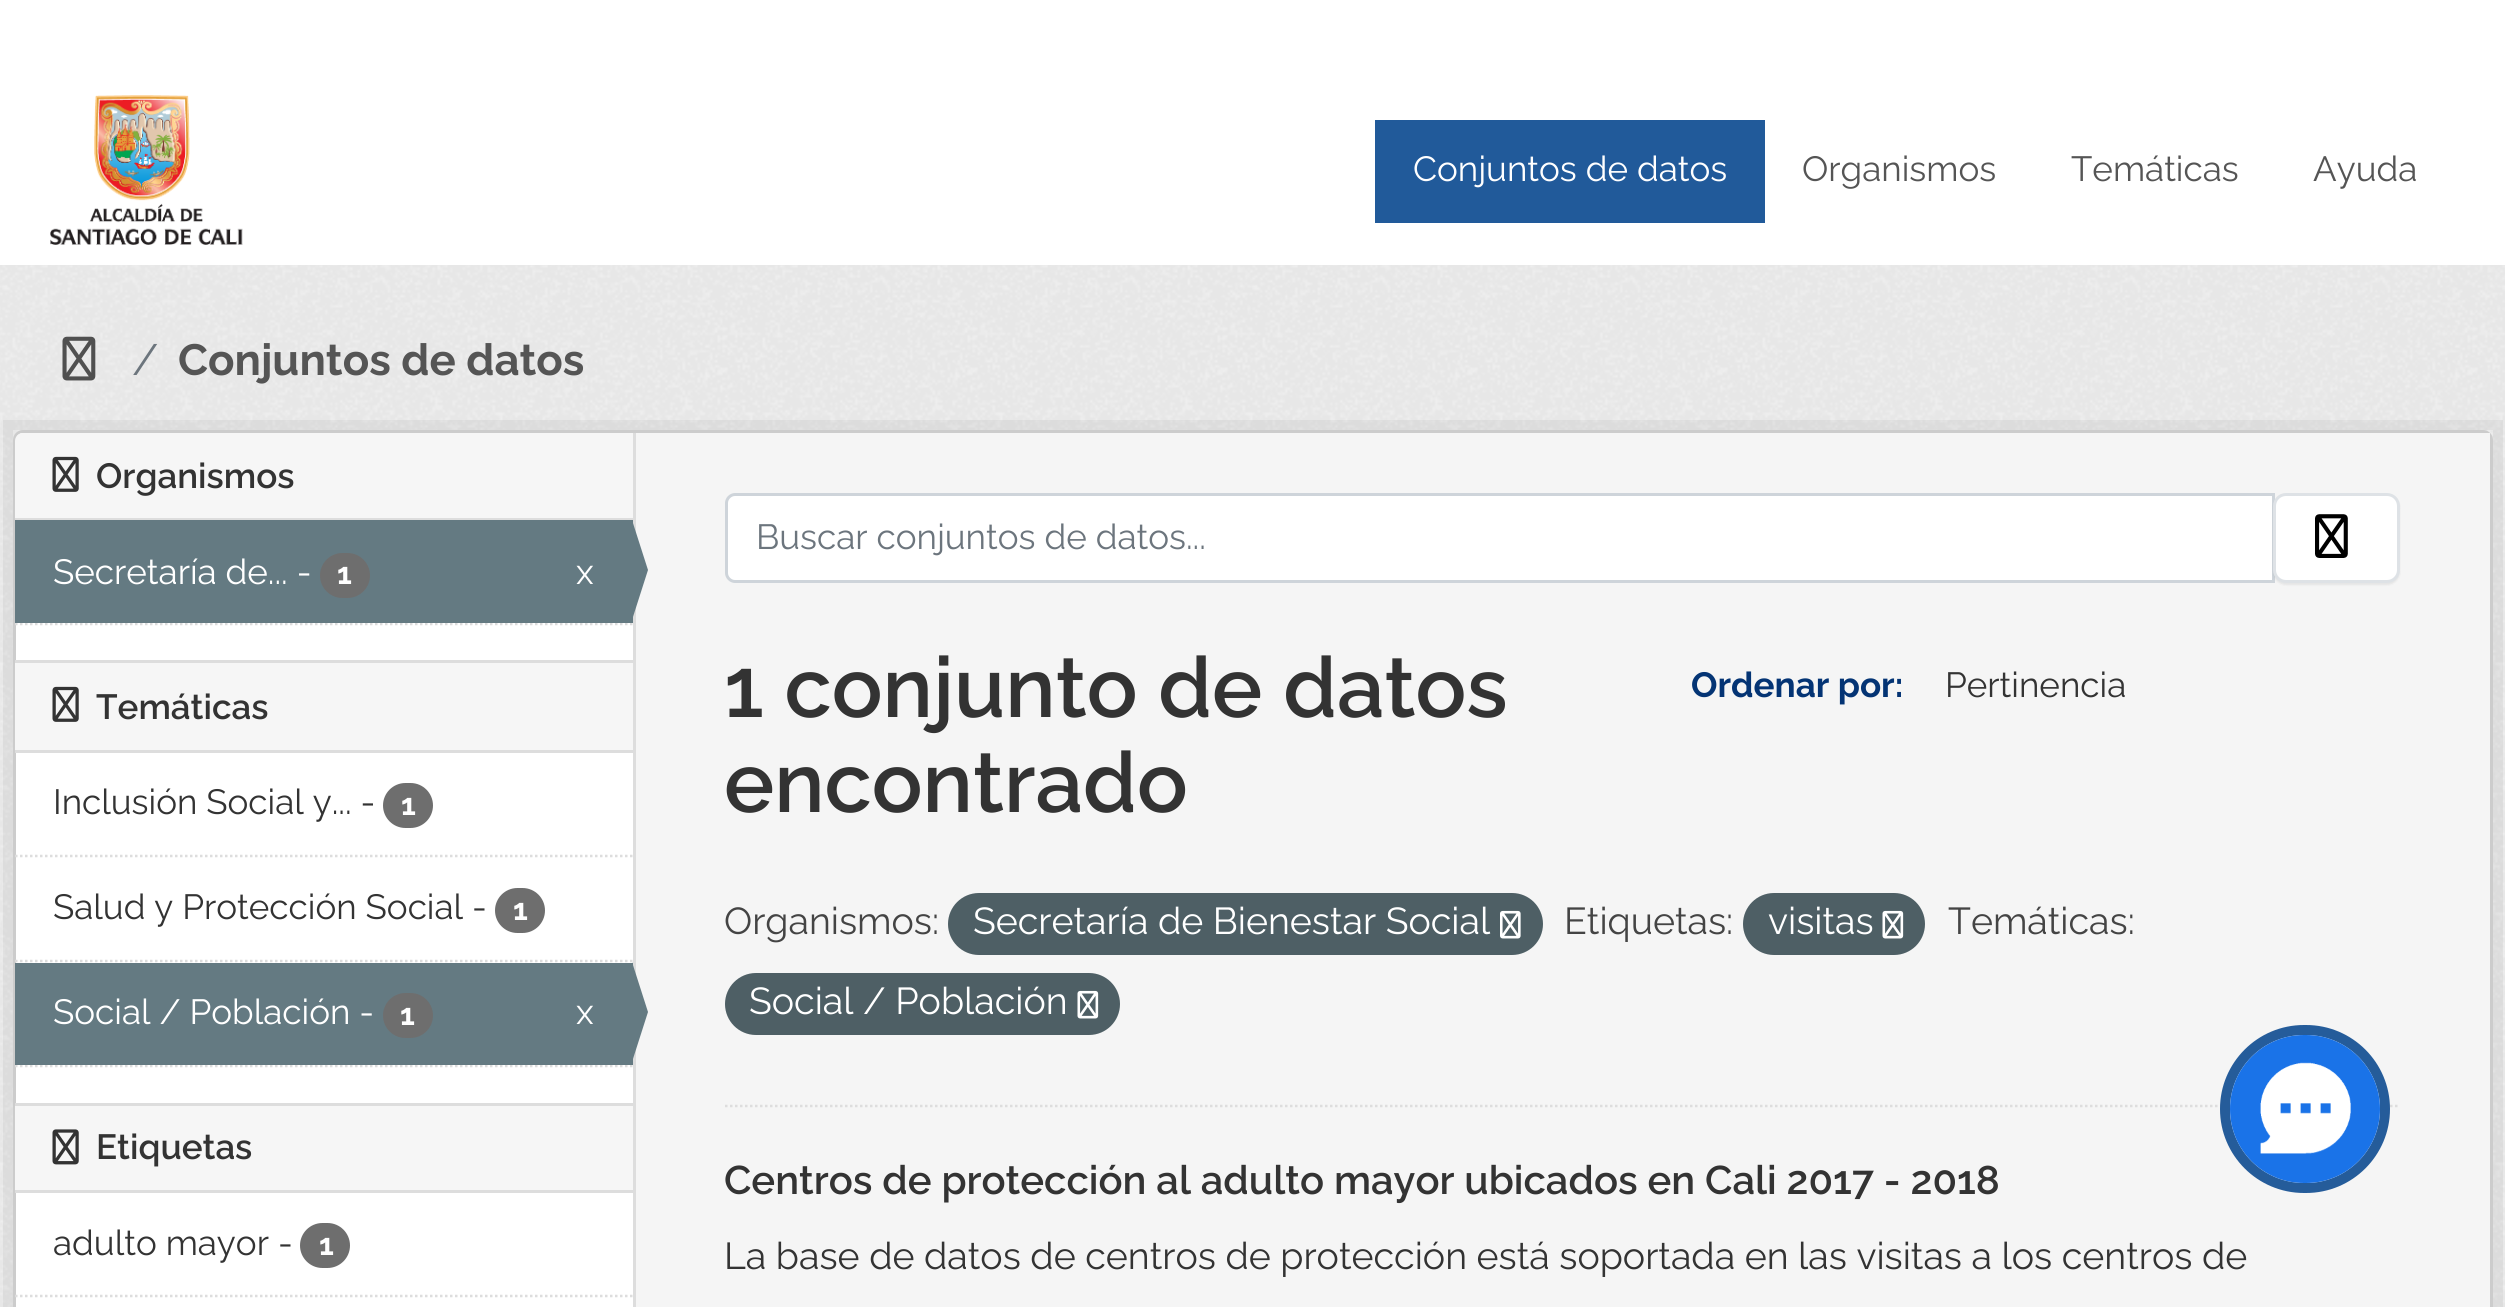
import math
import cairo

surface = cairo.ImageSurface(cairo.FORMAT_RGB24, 2505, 1307)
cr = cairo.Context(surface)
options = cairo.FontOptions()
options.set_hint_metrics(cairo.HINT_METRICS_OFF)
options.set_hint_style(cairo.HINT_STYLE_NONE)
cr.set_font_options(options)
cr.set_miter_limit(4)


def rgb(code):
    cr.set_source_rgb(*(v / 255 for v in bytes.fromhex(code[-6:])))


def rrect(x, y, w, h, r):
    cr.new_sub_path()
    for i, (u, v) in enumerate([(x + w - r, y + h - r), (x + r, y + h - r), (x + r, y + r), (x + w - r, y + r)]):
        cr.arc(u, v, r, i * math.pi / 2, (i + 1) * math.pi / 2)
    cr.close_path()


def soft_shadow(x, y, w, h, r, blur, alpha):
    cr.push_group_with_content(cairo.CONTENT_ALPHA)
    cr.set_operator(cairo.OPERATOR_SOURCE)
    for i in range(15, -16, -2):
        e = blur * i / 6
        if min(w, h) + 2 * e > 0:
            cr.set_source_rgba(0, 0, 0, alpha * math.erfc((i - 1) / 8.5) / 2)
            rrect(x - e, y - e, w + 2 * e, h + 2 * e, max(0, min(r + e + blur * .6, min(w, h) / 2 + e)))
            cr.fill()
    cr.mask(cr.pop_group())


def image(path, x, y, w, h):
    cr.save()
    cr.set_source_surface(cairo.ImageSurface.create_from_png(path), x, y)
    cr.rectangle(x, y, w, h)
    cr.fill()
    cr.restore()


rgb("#ffffff")
cr.paint()
image("img/1.png", 50, 95, 193, 150)
rgb("#215a9a")
cr.rectangle(1375, 120, 390, 103)
cr.fill()
rgb("#eeeeee")
cr.rectangle(0, 265, 2505, 1042)
cr.fill()
image("img/2.png", 0, 265, 2505, 1042)
image("img/3.png", 62, 336, 34, 45)
cr.rectangle(8, 425, 2490, 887)
cr.set_source_rgba(0, 0, 0, 0.05)
cr.set_line_width(10)
cr.stroke()
rgb("#ffffff")
rrect(14.5, 431.5, 2477, 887, 8.5)
cr.fill_preserve()
rgb("#cccccc")
cr.set_line_width(3)
cr.stroke()
rgb("#f6f6f6")
cr.new_path()
cr.move_to(23, 433)
cr.line_to(633, 433)
cr.line_to(633, 520)
cr.line_to(15, 520)
cr.line_to(15, 441)
cr.curve_to(15, 436.5, 18.5, 433, 23, 433)
cr.close_path()
cr.fill()
rgb("#dddddd")
cr.rectangle(15, 518, 618, 2)
cr.fill()
image("img/4.png", 52, 456, 27, 36)
cr.new_path()
cr.move_to(15, 624)
cr.line_to(632.5, 624)
cr.set_line_width(2.5)
cr.set_dash([2.5, 2.5])
cr.stroke()
rgb("#647a82")
cr.rectangle(15, 520, 618, 103)
cr.fill()
rgb("#6e6e6e")
rrect(320, 553, 50, 45, 22.5)
cr.fill()
rgb("#dddddd")
cr.rectangle(633, 433, 3, 874)
cr.fill()
rgb("#f5f5f5")
cr.rectangle(636, 433, 1854, 874)
cr.fill()
rgb("#647a82")
cr.new_path()
cr.move_to(632, 620)
cr.line_to(632, 520)
cr.line_to(648, 570)
cr.close_path()
cr.fill()
for x, y, w, h, color in [
    (15, 663, 618, 87, "#f6f6f6"),
    (15, 660, 618, 3, "#dddddd"),
    (15, 750, 618, 3, "#dddddd"),
]:
    rgb(color)
    cr.rectangle(x, y, w, h)
    cr.fill()
image("img/4.png", 52, 686, 27, 36)
cr.new_path()
cr.move_to(15, 856)
cr.line_to(632.5, 856)
cr.stroke()
rgb("#6e6e6e")
rrect(383, 783, 50, 45, 22.5)
cr.fill()
cr.new_path()
cr.move_to(15, 961)
cr.line_to(632.5, 961)
rgb("#dddddd")
cr.stroke()
rgb("#6e6e6e")
rrect(495, 888, 50, 45, 22.5)
cr.fill()
cr.new_path()
cr.move_to(15, 1066)
cr.line_to(632.5, 1066)
rgb("#dddddd")
cr.stroke()
rgb("#647a82")
cr.rectangle(15, 963, 618, 102)
cr.fill()
rgb("#6e6e6e")
rrect(383, 993, 50, 45, 22.5)
cr.fill()
rgb("#647a82")
cr.new_path()
cr.move_to(632, 1062)
cr.line_to(632, 962)
cr.line_to(648, 1012)
cr.close_path()
cr.fill()
for x, y, w, h, color in [
    (15, 1106, 618, 84, "#f6f6f6"),
    (15, 1103, 618, 3, "#dddddd"),
    (15, 1190, 618, 3, "#dddddd"),
]:
    rgb(color)
    cr.rectangle(x, y, w, h)
    cr.fill()
image("img/5.png", 52, 1129, 27, 36)
cr.new_path()
cr.move_to(15, 1296)
cr.line_to(632.5, 1296)
cr.stroke()
rgb("#6e6e6e")
rrect(300, 1223, 50, 45, 22.5)
cr.fill()
cr.new_path()
cr.move_to(725, 1106)
cr.line_to(2400, 1106)
rgb("#dddddd")
cr.stroke()
rgb("#ffffff")
cr.new_path()
cr.move_to(735, 494.5)
cr.line_to(2273.5, 494.5)
cr.line_to(2273.5, 581.5)
cr.line_to(735, 581.5)
cr.curve_to(730.5, 581.5, 726.5, 577.5, 726.5, 573)
cr.line_to(726.5, 503)
cr.curve_to(726.5, 498.5, 730.5, 494.5, 735, 494.5)
cr.close_path()
cr.fill_preserve()
rgb("#ced4da")
cr.set_line_width(3)
cr.set_dash([])
cr.stroke()
rgb("#000000")
soft_shadow(2273, 495, 127, 90, 13, 1, 0.07)
rgb("#ffffff")
rrect(2274.5, 494.5, 124, 87, 11.5)
cr.fill_preserve()
rgb("#dee2e6")
cr.stroke()
image("img/6.png", 2315, 514, 33, 44)
rgb("#4e5f65")
rrect(948, 893, 595, 62, 31)
cr.fill()
image("img/7.png", 1500, 910, 21, 29)
rrect(1743, 893, 182, 62, 31)
cr.fill()
image("img/8.png", 1882, 910, 22, 29)
rrect(725, 973, 395, 62, 31)
cr.fill()
image("img/8.png", 1077, 990, 22, 29)
rrect(2225, 1030, 160, 158, 79)
rgb("#255c9a")
cr.set_line_width(10)
cr.stroke()
rgb("#1a73e8")
rrect(2230, 1035, 150, 148, 74)
cr.fill()
image("img/9.png", 2260, 1062, 91, 92)
cr.select_font_face("Raleway")
cr.set_font_size(35)
rgb("#ffffff")
cr.move_to(1413, 181)
cr.show_text("Conjuntos de datos")
rgb("#555555")
for x, y, s in [
    (1802, 181, "Organismos"),
    (2071, 181, "Temáticas"),
    (2313, 181, "Ayuda"),
]:
    cr.move_to(x, y)
    cr.show_text(s)
cr.set_font_size(43.75)
rgb("#6c757d")
cr.move_to(132, 375)
cr.show_text("/")
cr.select_font_face("Raleway", cairo.FONT_SLANT_NORMAL, cairo.FONT_WEIGHT_BOLD)
rgb("#555555")
cr.move_to(178, 375)
cr.show_text("Conjuntos de datos")
cr.select_font_face("Raleway SemiBold")
cr.set_font_size(35)
rgb("#333333")
cr.move_to(96, 488)
cr.show_text("Organismos")
cr.select_font_face("Raleway")
rgb("#ffffff")
cr.move_to(53, 584)
cr.show_text("Secretaría de... -")
cr.select_font_face("Raleway", cairo.FONT_SLANT_NORMAL, cairo.FONT_WEIGHT_BOLD)
cr.set_font_size(30)
cr.move_to(337, 584)
cr.show_text("1")
cr.select_font_face("Raleway")
cr.set_font_size(35)
cr.move_to(576, 584)
cr.show_text("x")
cr.select_font_face("Raleway SemiBold")
rgb("#333333")
cr.move_to(96, 719)
cr.show_text("Temáticas")
cr.select_font_face("Raleway")
cr.move_to(53, 814)
cr.show_text("Inclusión Social y... -")
cr.select_font_face("Raleway", cairo.FONT_SLANT_NORMAL, cairo.FONT_WEIGHT_BOLD)
cr.set_font_size(30)
rgb("#ffffff")
cr.move_to(401, 815)
cr.show_text("1")
cr.select_font_face("Raleway")
cr.set_font_size(35)
rgb("#333333")
cr.move_to(53, 919)
cr.show_text("Salud y Protección Social -")
cr.select_font_face("Raleway", cairo.FONT_SLANT_NORMAL, cairo.FONT_WEIGHT_BOLD)
cr.set_font_size(30)
rgb("#ffffff")
cr.move_to(513, 920)
cr.show_text("1")
cr.select_font_face("Raleway")
cr.set_font_size(35)
cr.move_to(53, 1024)
cr.show_text("Social / Población -")
cr.select_font_face("Raleway", cairo.FONT_SLANT_NORMAL, cairo.FONT_WEIGHT_BOLD)
cr.set_font_size(30)
cr.move_to(400, 1025)
cr.show_text("1")
cr.select_font_face("Raleway")
cr.set_font_size(35)
cr.move_to(576, 1024)
cr.show_text("x")
cr.select_font_face("Raleway SemiBold")
rgb("#333333")
cr.move_to(96, 1159)
cr.show_text("Etiquetas")
cr.select_font_face("Raleway")
cr.move_to(53, 1255)
cr.show_text("adulto mayor -")
cr.select_font_face("Raleway", cairo.FONT_SLANT_NORMAL, cairo.FONT_WEIGHT_BOLD)
cr.set_font_size(30)
rgb("#ffffff")
cr.move_to(319, 1255)
cr.show_text("1")
cr.select_font_face("Raleway")
cr.set_font_size(35)
rgb("#6c757d")
cr.move_to(756, 549)
cr.show_text("Buscar conjuntos de datos...")
cr.select_font_face("Raleway SemiBold")
cr.set_font_size(84.4)
rgb("#333333")
cr.move_to(724, 717)
cr.show_text("1 conjunto de datos")
cr.move_to(724, 812)
cr.show_text("encontrado")
cr.select_font_face("Raleway", cairo.FONT_SLANT_NORMAL, cairo.FONT_WEIGHT_BOLD)
cr.set_font_size(35)
rgb("#043474")
cr.move_to(1691, 697)
cr.show_text("Ordenar por:")
cr.select_font_face("Raleway")
rgb("#333333")
cr.move_to(1945, 697)
cr.show_text("Pertinencia")
cr.set_font_size(37.5)
rgb("#444444")
cr.move_to(724, 934)
cr.show_text("Organismos:")
rgb("#ffffff")
cr.move_to(973, 934)
cr.show_text("Secretaría de Bienestar Social")
rgb("#444444")
cr.move_to(1564, 934)
cr.show_text("Etiquetas:")
rgb("#ffffff")
cr.move_to(1768, 934)
cr.show_text("visitas")
rgb("#444444")
cr.move_to(1948, 934)
cr.show_text("Temáticas:")
rgb("#ffffff")
cr.move_to(749, 1014)
cr.show_text("Social / Población")
cr.select_font_face("Raleway SemiBold")
cr.set_font_size(40)
rgb("#333333")
cr.move_to(724, 1194)
cr.show_text("Centros de protección al adulto mayor ubicados en Cali 2017 - 2018")
cr.select_font_face("Raleway")
cr.set_font_size(37.5)
cr.move_to(724, 1269)
cr.show_text("La base de datos de centros de protección está soportada en las visitas a los centros de")
surface.write_to_png("page.png")
